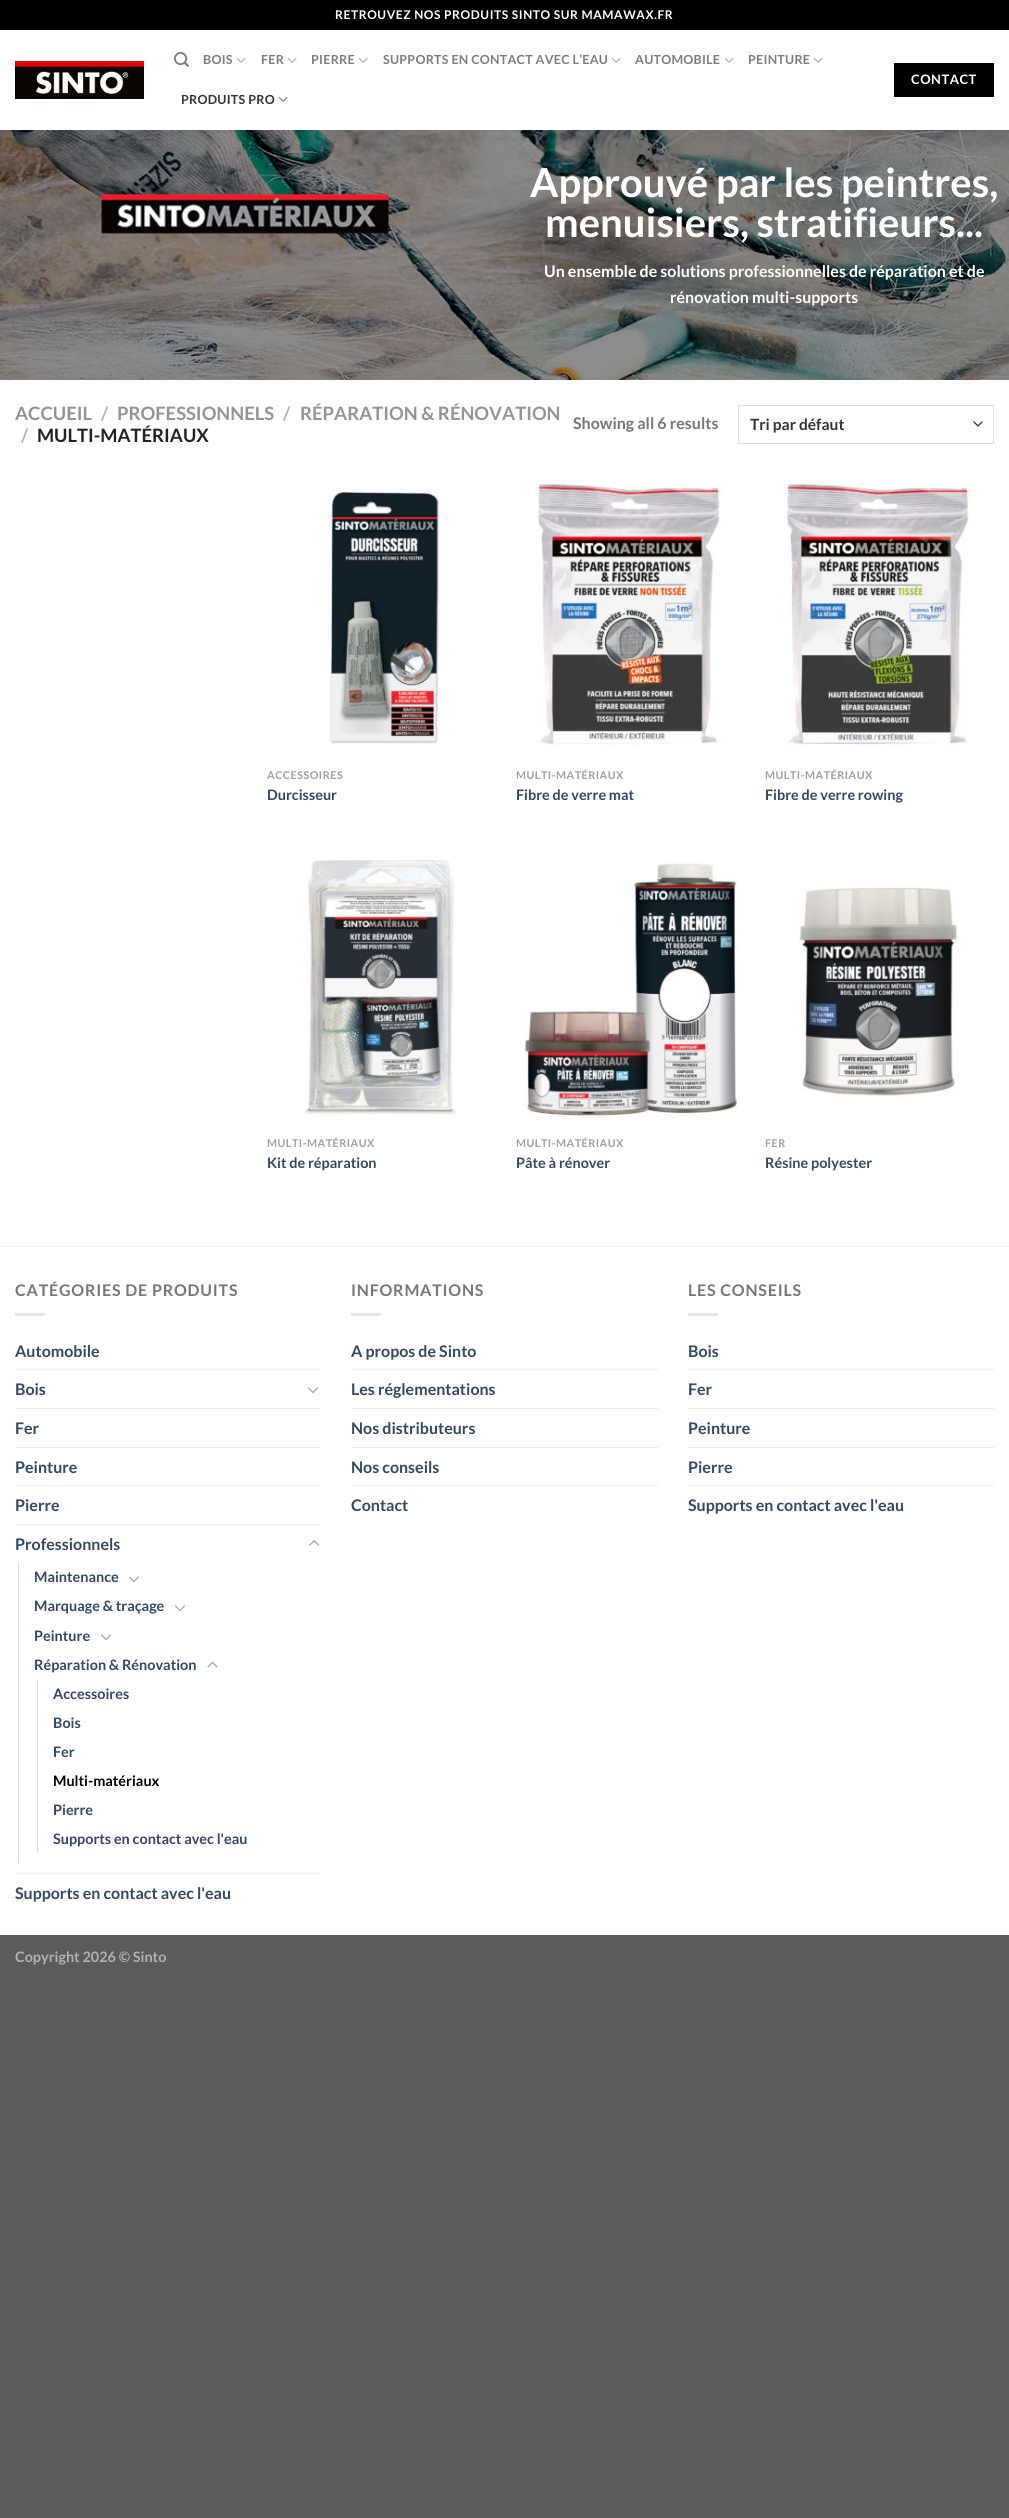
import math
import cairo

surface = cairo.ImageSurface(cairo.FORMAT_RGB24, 1009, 2518)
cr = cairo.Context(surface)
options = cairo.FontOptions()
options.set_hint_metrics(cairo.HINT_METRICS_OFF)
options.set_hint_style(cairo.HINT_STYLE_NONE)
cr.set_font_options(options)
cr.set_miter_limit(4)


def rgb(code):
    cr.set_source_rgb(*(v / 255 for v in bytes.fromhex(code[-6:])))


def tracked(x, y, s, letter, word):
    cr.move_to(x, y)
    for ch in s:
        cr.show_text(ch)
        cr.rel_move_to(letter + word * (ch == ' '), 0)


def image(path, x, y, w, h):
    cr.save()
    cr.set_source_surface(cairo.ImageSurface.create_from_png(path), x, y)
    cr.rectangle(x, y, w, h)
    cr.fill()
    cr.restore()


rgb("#5b5b5b")
cr.paint()
rgb("#ffffff")
cr.rectangle(0, 30, 1009, 1905)
cr.fill()
rgb("#000000")
cr.rectangle(0, 0, 1009, 30)
cr.fill()
image("img/1.png", 15, 61, 129, 38)
image("img/2.png", 174, 52, 15, 15)
image("img/3.png", 236, 57, 10, 6)
image("img/3.png", 287, 57, 10, 6)
image("img/3.png", 358, 57, 10, 6)
image("img/3.png", 611, 57, 10, 6)
image("img/3.png", 724, 57, 10, 6)
image("img/3.png", 813, 57, 10, 6)
image("img/4.png", 278, 96, 10, 6)
cr.rectangle(894, 63, 100, 34)
cr.fill()
image("img/5.png", 0, 130, 1009, 250)
cr.set_source_rgba(0.467, 0.467, 0.467, 0.1)
cr.rectangle(15, 130, 943, 1)
cr.fill()
image("img/6.png", 101, 194, 288, 40)
cr.new_path()
cr.move_to(974, 422)
cr.line_to(978, 426)
cr.line_to(982, 422)
rgb("#333333")
cr.set_line_width(1.3)
cr.set_line_cap(cairo.LINE_CAP_ROUND)
cr.set_line_join(cairo.LINE_JOIN_ROUND)
cr.stroke()
cr.rectangle(738.5, 405.5, 255, 38)
rgb("#dddddd")
cr.set_line_width(1)
cr.set_line_cap(cairo.LINE_CAP_BUTT)
cr.set_line_join(cairo.LINE_JOIN_MITER)
cr.stroke()
image("img/7.png", 326, 490, 114, 254)
image("img/8.png", 538, 480, 186, 266)
image("img/9.png", 787, 479, 186, 267)
image("img/10.png", 304, 860, 153, 255)
image("img/11.png", 523, 862, 216, 255)
image("img/12.png", 799, 885, 159, 214)
for x, y, w, h, color in [
    (0, 1246, 1009, 1, "#f2f2f2"),
    (15, 1313, 30, 3, "#e6e6e6"),
    (15, 1369, 306, 1, "#ececec"),
]:
    rgb(color)
    cr.rectangle(x, y, w, h)
    cr.fill()
image("img/13.png", 307, 1387, 12, 7)
for x, y, w, h, color in [
    (15, 1408, 306, 1, "#ececec"),
    (15, 1447, 306, 1, "#ececec"),
    (15, 1485, 306, 1, "#ececec"),
    (15, 1524, 306, 1, "#ececec"),
]:
    rgb(color)
    cr.rectangle(x, y, w, h)
    cr.fill()
image("img/14.png", 309, 1540, 11, 6)
rgb("#dddddd")
cr.rectangle(18, 1562, 1, 301)
cr.fill()
image("img/13.png", 128, 1576, 12, 7)
image("img/13.png", 174, 1605, 12, 7)
image("img/13.png", 100, 1634, 12, 7)
image("img/15.png", 207, 1661, 11, 7)
for x, y, w, h, color in [
    (37, 1679, 1, 174, "#dddddd"),
    (15, 1873, 306, 1, "#ececec"),
    (351, 1313, 30, 3, "#e6e6e6"),
    (351, 1369, 307, 1, "#ececec"),
    (351, 1408, 307, 1, "#ececec"),
    (351, 1447, 307, 1, "#ececec"),
    (351, 1485, 307, 1, "#ececec"),
    (688, 1313, 30, 3, "#e6e6e6"),
    (688, 1369, 306, 1, "#ececec"),
    (688, 1408, 306, 1, "#ececec"),
    (688, 1447, 306, 1, "#ececec"),
    (688, 1485, 306, 1, "#ececec"),
]:
    rgb(color)
    cr.rectangle(x, y, w, h)
    cr.fill()
cr.select_font_face("Lato", cairo.FONT_SLANT_NORMAL, cairo.FONT_WEIGHT_BOLD)
cr.set_font_size(12)
rgb("#ffffff")
tracked(335, 19, "RETROUVEZ NOS PRODUITS SINTO SUR MAMAWAX.FR", 0.6, 0)
cr.set_font_size(12.5)
rgb("#7d7d7d")
for x, y, s in [
    (203, 64, "BOIS"),
    (261, 64, "FER"),
    (311, 64, "PIERRE"),
    (383, 64, "SUPPORTS EN CONTACT AVEC L’EAU"),
    (635, 64, "AUTOMOBILE"),
    (748, 64, "PEINTURE"),
]:
    tracked(x, y, s, 0.25, 0)
rgb("#333333")
tracked(181, 104, "PRODUITS PRO", 0.25, 0)
cr.set_font_size(13)
rgb("#ffffff")
tracked(911, 84, "CONTACT", 0.5, 0)
cr.set_font_size(40)
cr.move_to(530, 197)
cr.show_text("Approuvé par les peintres,")
cr.move_to(545, 237)
cr.show_text("menuisiers, stratifieurs...")
cr.set_font_size(16)
cr.move_to(544, 277)
cr.show_text("Un ensemble de solutions professionnelles de réparation et de")
cr.move_to(670, 303)
cr.show_text("rénovation multi-supports")
cr.set_font_size(18.4)
rgb("#949494")
cr.move_to(15, 420)
cr.show_text("ACCUEIL")
rgb("#b2b2b2")
cr.move_to(101, 420)
cr.show_text("/")
rgb("#949494")
cr.move_to(117, 420)
cr.show_text("PROFESSIONNELS")
rgb("#b2b2b2")
cr.move_to(283, 420)
cr.show_text("/")
rgb("#949494")
cr.move_to(300, 420)
cr.show_text("RÉPARATION & RÉNOVATION")
rgb("#b2b2b2")
cr.move_to(21, 442)
cr.show_text("/")
rgb("#222222")
cr.move_to(37, 442)
cr.show_text("MULTI-MATÉRIAUX")
cr.set_font_size(16)
rgb("#777777")
cr.move_to(573, 429)
cr.show_text("Showing all 6 results")
cr.set_font_size(15.5)
rgb("#333333")
cr.move_to(750, 430)
cr.show_text("Tri par défaut")
cr.set_font_size(10.75)
rgb("#a0a0a0")
tracked(267, 779, "ACCESSOIRES", 0.5, 0)
cr.set_font_size(14.4)
rgb("#334862")
cr.move_to(267, 800)
cr.show_text("Durcisseur")
cr.set_font_size(10.75)
rgb("#a0a0a0")
tracked(516, 779, "MULTI-MATÉRIAUX", 0.5, 0)
cr.set_font_size(14.4)
rgb("#334862")
cr.move_to(516, 800)
cr.show_text("Fibre de verre mat")
cr.set_font_size(10.75)
rgb("#a0a0a0")
tracked(765, 779, "MULTI-MATÉRIAUX", 0.5, 0)
cr.set_font_size(14.4)
rgb("#334862")
cr.move_to(765, 800)
cr.show_text("Fibre de verre rowing")
cr.set_font_size(10.75)
rgb("#a0a0a0")
tracked(267, 1147, "MULTI-MATÉRIAUX", 0.5, 0)
cr.set_font_size(14.4)
rgb("#334862")
cr.move_to(267, 1168)
cr.show_text("Kit de réparation")
cr.set_font_size(10.75)
rgb("#a0a0a0")
tracked(516, 1147, "MULTI-MATÉRIAUX", 0.5, 0)
cr.set_font_size(14.4)
rgb("#334862")
cr.move_to(516, 1168)
cr.show_text("Pâte à rénover")
cr.set_font_size(10.75)
rgb("#a0a0a0")
tracked(765, 1147, "FER", 0.5, 0)
cr.set_font_size(14.4)
rgb("#334862")
cr.move_to(765, 1168)
cr.show_text("Résine polyester")
cr.set_font_size(16)
rgb("#777777")
tracked(15, 1296, "CATÉGORIES DE PRODUITS", 0.8, 0)
rgb("#334862")
for x, y, s in [
    (15, 1357, "Automobile"),
    (15, 1395, "Bois"),
    (15, 1434, "Fer"),
    (15, 1473, "Peinture"),
    (15, 1511, "Pierre"),
    (15, 1550, "Professionnels"),
]:
    cr.move_to(x, y)
    cr.show_text(s)
cr.set_font_size(14.4)
for x, y, s in [
    (34, 1582, "Maintenance"),
    (34, 1611, "Marquage & traçage"),
    (34, 1641, "Peinture"),
    (34, 1670, "Réparation & Rénovation"),
    (53, 1699, "Accessoires"),
    (53, 1728, "Bois"),
    (53, 1757, "Fer"),
]:
    cr.move_to(x, y)
    cr.show_text(s)
rgb("#000000")
cr.move_to(53, 1786)
cr.show_text("Multi-matériaux")
rgb("#334862")
cr.move_to(53, 1815)
cr.show_text("Pierre")
cr.move_to(53, 1844)
cr.show_text("Supports en contact avec l'eau")
cr.set_font_size(16)
cr.move_to(15, 1899)
cr.show_text("Supports en contact avec l'eau")
rgb("#777777")
tracked(351, 1296, "INFORMATIONS", 0.8, 0)
rgb("#334862")
for x, y, s in [
    (351, 1357, "A propos de Sinto"),
    (351, 1395, "Les réglementations"),
    (351, 1434, "Nos distributeurs"),
    (351, 1473, "Nos conseils"),
    (351, 1511, "Contact"),
]:
    cr.move_to(x, y)
    cr.show_text(s)
rgb("#777777")
tracked(688, 1296, "LES CONSEILS", 0.8, 0)
rgb("#334862")
for x, y, s in [
    (688, 1357, "Bois"),
    (688, 1395, "Fer"),
    (688, 1434, "Peinture"),
    (688, 1473, "Pierre"),
    (688, 1511, "Supports en contact avec l'eau"),
]:
    cr.move_to(x, y)
    cr.show_text(s)
cr.set_font_size(14.4)
rgb("#b2b2b2")
cr.move_to(15, 1962)
cr.show_text("Copyright 2026 © Sinto")
surface.write_to_png("page.png")
